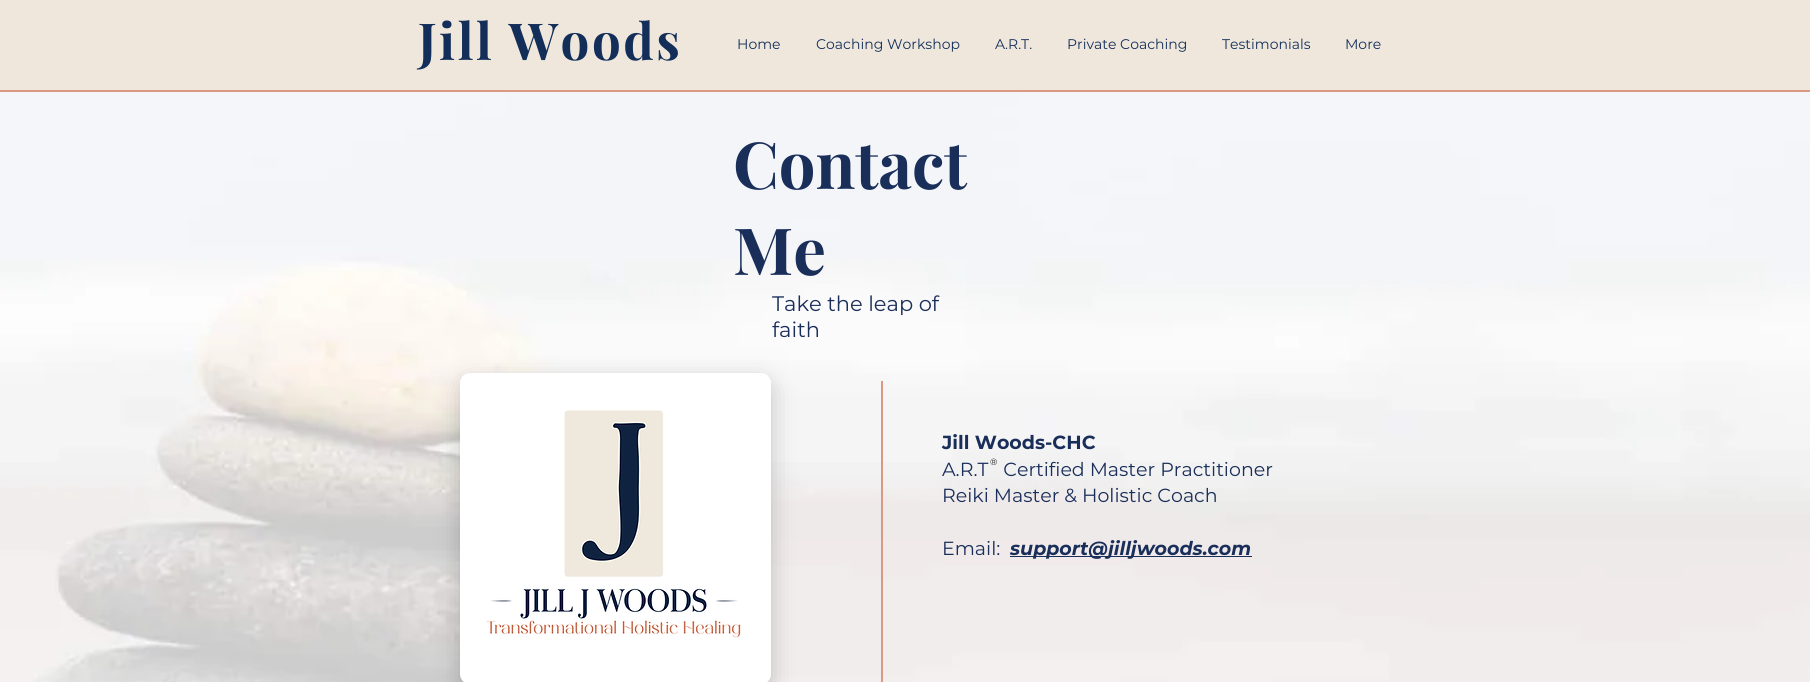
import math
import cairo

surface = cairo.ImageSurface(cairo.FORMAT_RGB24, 1810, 682)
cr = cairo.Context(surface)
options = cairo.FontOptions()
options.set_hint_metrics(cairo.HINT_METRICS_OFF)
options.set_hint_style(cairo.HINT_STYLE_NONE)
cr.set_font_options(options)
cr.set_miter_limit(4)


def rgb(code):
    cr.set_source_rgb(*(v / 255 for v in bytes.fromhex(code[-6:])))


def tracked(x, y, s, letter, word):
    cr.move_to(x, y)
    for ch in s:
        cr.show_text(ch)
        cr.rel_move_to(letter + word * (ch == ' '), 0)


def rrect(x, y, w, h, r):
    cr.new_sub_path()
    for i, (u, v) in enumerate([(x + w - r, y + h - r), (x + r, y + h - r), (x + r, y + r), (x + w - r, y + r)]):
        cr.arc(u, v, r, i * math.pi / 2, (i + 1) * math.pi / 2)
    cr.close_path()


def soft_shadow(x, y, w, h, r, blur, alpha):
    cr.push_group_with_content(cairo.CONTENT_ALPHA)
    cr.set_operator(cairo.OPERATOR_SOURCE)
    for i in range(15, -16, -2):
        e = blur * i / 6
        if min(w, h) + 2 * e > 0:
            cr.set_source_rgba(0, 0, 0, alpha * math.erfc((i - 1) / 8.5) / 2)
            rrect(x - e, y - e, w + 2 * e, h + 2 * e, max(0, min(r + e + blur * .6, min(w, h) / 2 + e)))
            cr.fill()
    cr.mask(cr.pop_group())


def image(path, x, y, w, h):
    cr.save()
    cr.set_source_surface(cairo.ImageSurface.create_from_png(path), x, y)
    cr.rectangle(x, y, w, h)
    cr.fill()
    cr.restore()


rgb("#efe7dc")
cr.paint()
rgb("#db9982")
cr.rectangle(0, 90, 1810, 2)
cr.fill()
image("img/1.png", 0, 92, 1810, 590)
rgb("#000000")
soft_shadow(460, 381, 311, 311, 10, 12, 0.21)
rgb("#ffffff")
rrect(461, 374, 309, 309, 9)
cr.fill_preserve()
cr.stroke()
image("img/2.png", 486, 410, 255, 228)
rgb("#db9982")
cr.rectangle(881, 381, 2, 301)
cr.fill()
rgb("#1a2e5a")
cr.rectangle(1010, 556, 242, 1)
cr.fill()
cr.select_font_face("Playfair Display", cairo.FONT_SLANT_NORMAL, cairo.FONT_WEIGHT_BOLD)
cr.set_font_size(51)
rgb("#122e59")
tracked(418, 60, "Jill Woods", 2.5, 0)
cr.select_font_face("Montserrat")
cr.set_font_size(14)
for x, y, s in [
    (737, 49, "Home"),
    (816, 49, "Coaching Workshop"),
    (995, 49, "A.R.T."),
    (1067, 49, "Private Coaching"),
    (1222, 49, "Testimonials"),
    (1345, 49, "More"),
]:
    cr.move_to(x, y)
    cr.show_text(s)
cr.select_font_face("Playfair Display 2", cairo.FONT_SLANT_NORMAL, cairo.FONT_WEIGHT_BOLD)
cr.set_font_size(65)
rgb("#1a2e5a")
cr.move_to(733, 189)
cr.show_text("Contact")
cr.move_to(733, 275)
cr.show_text("Me")
cr.select_font_face("Montserrat")
cr.set_font_size(21)
cr.move_to(772, 311)
cr.show_text("Take the leap of")
cr.move_to(772, 337)
cr.show_text("faith")
cr.select_font_face("Montserrat", cairo.FONT_SLANT_NORMAL, cairo.FONT_WEIGHT_BOLD)
cr.set_font_size(19)
cr.move_to(942, 449)
cr.show_text("Jill Woods-CHC")
cr.select_font_face("Montserrat")
for x, y, s in [
    (942, 476, "A.R.T   Certified Master Practitioner"),
    (942, 502, "Reiki Master & Holistic Coach"),
    (942, 555, "Email:"),
]:
    cr.move_to(x, y)
    cr.show_text(s)
cr.select_font_face("Montserrat", cairo.FONT_SLANT_ITALIC, cairo.FONT_WEIGHT_BOLD)
cr.move_to(1010, 555)
cr.show_text("support@jilljwoods.com")
cr.select_font_face("Montserrat")
cr.set_font_size(9)
rgb("#000000")
cr.move_to(990, 465)
cr.show_text("®")
surface.write_to_png("page.png")
